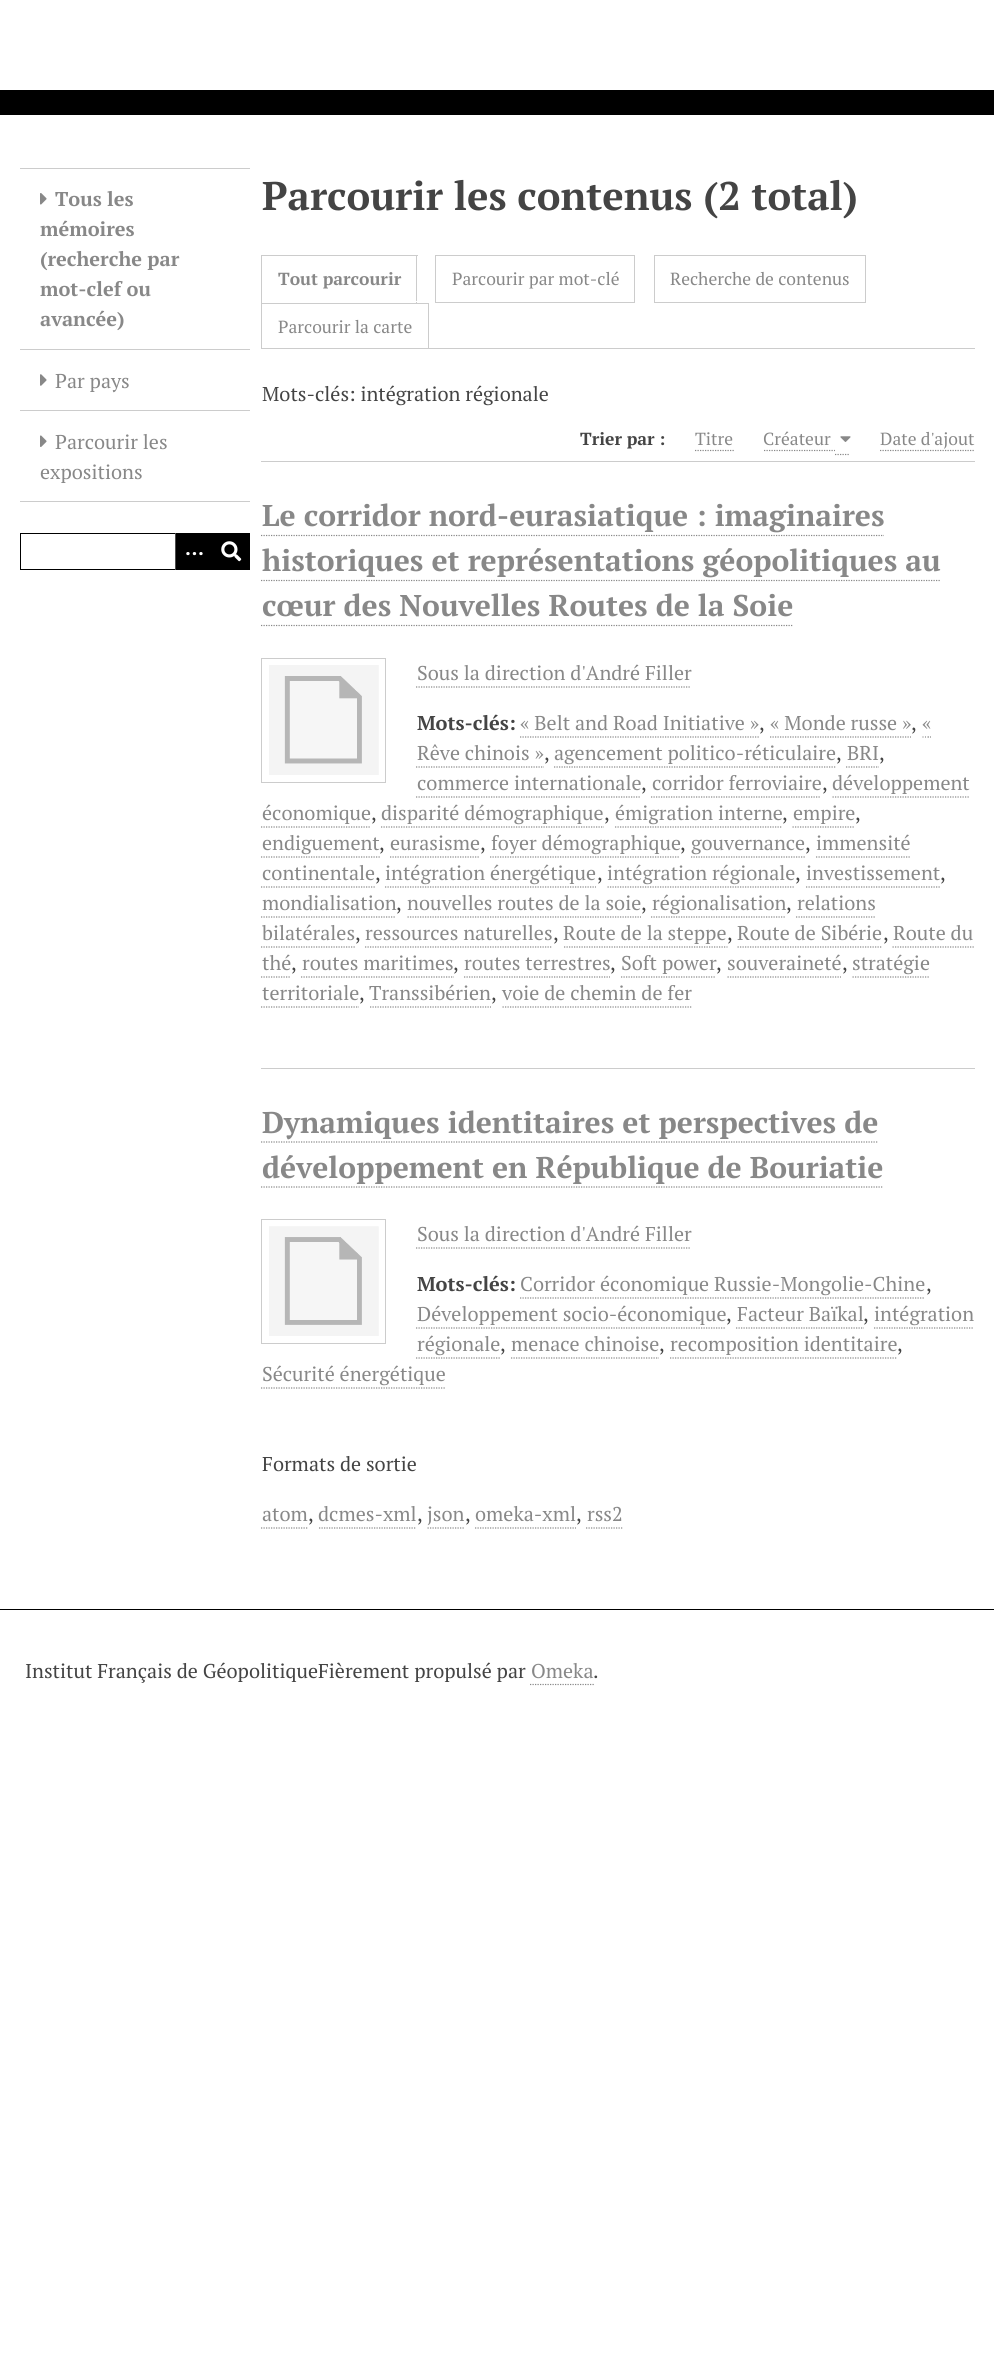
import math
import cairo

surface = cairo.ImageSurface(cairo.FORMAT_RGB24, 994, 2373)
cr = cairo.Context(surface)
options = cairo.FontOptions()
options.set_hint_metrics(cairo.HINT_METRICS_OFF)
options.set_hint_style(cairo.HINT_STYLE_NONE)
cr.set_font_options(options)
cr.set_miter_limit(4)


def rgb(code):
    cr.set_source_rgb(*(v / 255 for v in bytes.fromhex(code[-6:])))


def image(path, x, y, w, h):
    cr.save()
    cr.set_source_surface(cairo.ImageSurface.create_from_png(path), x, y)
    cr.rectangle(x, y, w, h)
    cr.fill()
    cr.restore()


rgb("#ffffff")
cr.paint()
for x, y, w, h, color in [
    (0, 90, 994, 25, "#000000"),
    (20, 168, 230, 1, "#cccccc"),
    (20, 349, 230, 1, "#cccccc"),
]:
    rgb(color)
    cr.rectangle(x, y, w, h)
    cr.fill()
image("img/1.png", 40, 193, 7, 12)
cr.rectangle(20, 410, 230, 1)
cr.fill()
image("img/2.png", 40, 374, 7, 12)
cr.rectangle(20, 501, 230, 1)
cr.fill()
image("img/3.png", 40, 435, 7, 12)
cr.rectangle(20.5, 533.5, 229, 36)
rgb("#000000")
cr.set_line_width(1)
cr.stroke()
cr.rectangle(176, 534, 73, 35)
cr.fill()
rgb("#4d4d4d")
cr.rectangle(175, 533, 1, 37)
cr.fill()
image("img/4.png", 221, 541, 21, 21)
for x, y, w, h, color in [
    (261, 348, 714, 1, "#cccccc"),
    (261, 255, 157, 1, "#cccccc"),
    (416, 255, 1, 48, "#cccccc"),
    (416, 301, 2, 1, "#ffffff"),
    (261, 255, 1, 48, "#cccccc"),
]:
    rgb(color)
    cr.rectangle(x, y, w, h)
    cr.fill()
cr.rectangle(435.5, 255.5, 199, 47)
cr.stroke()
cr.rectangle(654.5, 255.5, 211, 47)
cr.stroke()
for x, y, w, h, color in [
    (261, 303, 168, 1, "#cccccc"),
    (428, 303, 1, 46, "#cccccc"),
    (261, 303, 1, 46, "#cccccc"),
]:
    rgb(color)
    cr.rectangle(x, y, w, h)
    cr.fill()
cr.new_path()
cr.move_to(695, 450.5)
cr.line_to(734, 450.5)
rgb("#888888")
cr.set_line_width(1.2)
cr.set_dash([1.25, 1.25])
cr.stroke()
cr.new_path()
cr.move_to(764, 450.5)
cr.line_to(835, 450.5)
cr.stroke()
cr.new_path()
cr.move_to(835, 454.5)
cr.line_to(850, 454.5)
cr.stroke()
image("img/5.png", 840, 436, 11, 6)
cr.new_path()
cr.move_to(880, 450.5)
cr.line_to(975, 450.5)
cr.stroke()
rgb("#cccccc")
cr.rectangle(261, 461, 714, 1)
cr.fill()
cr.new_path()
cr.move_to(261, 535.5)
cr.line_to(884, 535.5)
rgb("#888888")
cr.stroke()
cr.new_path()
cr.move_to(261, 580.5)
cr.line_to(940, 580.5)
cr.stroke()
cr.new_path()
cr.move_to(261, 625.5)
cr.line_to(792.5, 625.5)
cr.stroke()
cr.rectangle(261.5, 658.5, 124, 124)
rgb("#cccccc")
cr.set_line_width(1)
cr.set_dash([])
cr.stroke()
image("img/6.png", 269, 665, 110, 110)
cr.new_path()
cr.move_to(416, 687)
cr.line_to(691, 687)
rgb("#888888")
cr.set_line_width(1.2)
cr.set_dash([1.25, 1.25])
cr.stroke()
cr.new_path()
cr.move_to(520, 737)
cr.line_to(760, 737)
cr.stroke()
cr.new_path()
cr.move_to(770, 737)
cr.line_to(911, 737)
cr.stroke()
cr.new_path()
cr.move_to(922.5, 737)
cr.line_to(923.5, 737)
cr.move_to(925, 737)
cr.line_to(926, 737)
cr.move_to(927.5, 737)
cr.line_to(929, 737)
cr.move_to(930, 737)
cr.line_to(931, 737)
cr.set_dash([])
cr.stroke()
cr.new_path()
cr.move_to(416, 767)
cr.line_to(544, 767)
cr.set_dash([1.25, 1.25])
cr.stroke()
cr.new_path()
cr.move_to(554, 767)
cr.line_to(836, 767)
cr.stroke()
cr.new_path()
cr.move_to(846, 767)
cr.line_to(879, 767)
cr.stroke()
cr.new_path()
cr.move_to(416, 797)
cr.line_to(641, 797)
cr.stroke()
cr.new_path()
cr.move_to(651, 797)
cr.line_to(821, 797)
cr.stroke()
cr.new_path()
cr.move_to(832.5, 797)
cr.line_to(970, 797)
cr.stroke()
cr.new_path()
cr.move_to(261, 827)
cr.line_to(371, 827)
cr.stroke()
cr.new_path()
cr.move_to(381, 827)
cr.line_to(604, 827)
cr.stroke()
cr.new_path()
cr.move_to(615, 827)
cr.line_to(782.5, 827)
cr.stroke()
cr.new_path()
cr.move_to(792.5, 827)
cr.line_to(855, 827)
cr.stroke()
cr.new_path()
cr.move_to(261, 857)
cr.line_to(380, 857)
cr.stroke()
cr.new_path()
cr.move_to(390, 857)
cr.line_to(480, 857)
cr.stroke()
cr.new_path()
cr.move_to(490, 857)
cr.line_to(680, 857)
cr.stroke()
cr.new_path()
cr.move_to(691, 857)
cr.line_to(805, 857)
cr.stroke()
cr.new_path()
cr.move_to(816, 857)
cr.line_to(910, 857)
cr.stroke()
cr.new_path()
cr.move_to(261, 887)
cr.line_to(375, 887)
cr.stroke()
cr.new_path()
cr.move_to(385, 887)
cr.line_to(596, 887)
cr.stroke()
cr.new_path()
cr.move_to(607.5, 887)
cr.line_to(795, 887)
cr.stroke()
cr.new_path()
cr.move_to(806, 887)
cr.line_to(940, 887)
cr.stroke()
cr.new_path()
cr.move_to(261, 917)
cr.line_to(396, 917)
cr.stroke()
cr.new_path()
cr.move_to(407.5, 917)
cr.line_to(641, 917)
cr.stroke()
cr.new_path()
cr.move_to(651, 917)
cr.line_to(786, 917)
cr.stroke()
cr.new_path()
cr.move_to(796, 917)
cr.line_to(876, 917)
cr.stroke()
cr.new_path()
cr.move_to(261, 947)
cr.line_to(355, 947)
cr.stroke()
cr.new_path()
cr.move_to(365, 947)
cr.line_to(552.5, 947)
cr.stroke()
cr.new_path()
cr.move_to(564, 947)
cr.line_to(727.5, 947)
cr.stroke()
cr.new_path()
cr.move_to(737.5, 947)
cr.line_to(882.5, 947)
cr.stroke()
cr.new_path()
cr.move_to(892.5, 947)
cr.line_to(974, 947)
cr.stroke()
cr.new_path()
cr.move_to(261, 977)
cr.line_to(291, 977)
cr.stroke()
cr.new_path()
cr.move_to(301, 977)
cr.line_to(454, 977)
cr.stroke()
cr.new_path()
cr.move_to(464, 977)
cr.line_to(610, 977)
cr.stroke()
cr.new_path()
cr.move_to(621, 977)
cr.line_to(716, 977)
cr.stroke()
cr.new_path()
cr.move_to(727.5, 977)
cr.line_to(841, 977)
cr.stroke()
cr.new_path()
cr.move_to(852.5, 977)
cr.line_to(930, 977)
cr.stroke()
cr.new_path()
cr.move_to(261, 1007)
cr.line_to(359, 1007)
cr.stroke()
cr.new_path()
cr.move_to(370, 1007)
cr.line_to(491, 1007)
cr.stroke()
cr.new_path()
cr.move_to(502.5, 1007)
cr.line_to(692.5, 1007)
cr.stroke()
rgb("#cccccc")
cr.rectangle(261, 1068, 714, 1)
cr.fill()
cr.new_path()
cr.move_to(261, 1142)
cr.line_to(877.5, 1142)
rgb("#888888")
cr.stroke()
cr.new_path()
cr.move_to(261, 1187)
cr.line_to(882.5, 1187)
cr.stroke()
cr.rectangle(261.5, 1219.5, 124, 124)
rgb("#cccccc")
cr.set_line_width(1)
cr.set_dash([])
cr.stroke()
image("img/7.png", 269, 1226, 110, 110)
cr.new_path()
cr.move_to(416, 1248)
cr.line_to(691, 1248)
rgb("#888888")
cr.set_line_width(1.2)
cr.set_dash([1.25, 1.25])
cr.stroke()
cr.new_path()
cr.move_to(520, 1298)
cr.line_to(925, 1298)
cr.stroke()
cr.new_path()
cr.move_to(416, 1328)
cr.line_to(726, 1328)
cr.stroke()
cr.new_path()
cr.move_to(736, 1328)
cr.line_to(864, 1328)
cr.stroke()
cr.new_path()
cr.move_to(874, 1328)
cr.line_to(974, 1328)
cr.stroke()
cr.new_path()
cr.move_to(416, 1358)
cr.line_to(500, 1358)
cr.stroke()
cr.new_path()
cr.move_to(511, 1358)
cr.line_to(659, 1358)
cr.stroke()
cr.new_path()
cr.move_to(670, 1358)
cr.line_to(897.5, 1358)
cr.stroke()
cr.new_path()
cr.move_to(261, 1388)
cr.line_to(445, 1388)
cr.stroke()
cr.new_path()
cr.move_to(261, 1528)
cr.line_to(307.5, 1528)
cr.stroke()
cr.new_path()
cr.move_to(319, 1528)
cr.line_to(416, 1528)
cr.stroke()
cr.new_path()
cr.move_to(427.5, 1528)
cr.line_to(465, 1528)
cr.stroke()
cr.new_path()
cr.move_to(475, 1528)
cr.line_to(576, 1528)
cr.stroke()
cr.new_path()
cr.move_to(586, 1528)
cr.line_to(622.5, 1528)
cr.stroke()
rgb("#000000")
cr.rectangle(0, 1609, 994, 1)
cr.fill()
cr.new_path()
cr.move_to(530, 1684.5)
cr.line_to(594, 1684.5)
rgb("#888888")
cr.stroke()
cr.select_font_face("PT Serif", cairo.FONT_SLANT_NORMAL, cairo.FONT_WEIGHT_BOLD)
cr.set_font_size(20)
for x, y, s in [
    (55, 206, "Tous les"),
    (40, 236, "mémoires"),
    (40, 266, "(recherche par"),
    (40, 296, "mot-clef ou"),
    (40, 326, "avancée)"),
]:
    cr.move_to(x, y)
    cr.show_text(s)
cr.select_font_face("PT Serif")
for x, y, s in [
    (55, 388, "Par pays"),
    (55, 449, "Parcourir les"),
    (40, 479, "expositions"),
]:
    cr.move_to(x, y)
    cr.show_text(s)
cr.select_font_face("PT Serif", cairo.FONT_SLANT_NORMAL, cairo.FONT_WEIGHT_BOLD)
rgb("#ffffff")
cr.move_to(185, 555)
cr.show_text("…")
cr.set_font_size(40)
rgb("#444444")
cr.move_to(262, 210)
cr.show_text("Parcourir les contenus (2 total)")
cr.set_font_size(17.5)
rgb("#888888")
cr.move_to(278, 285)
cr.show_text("Tout parcourir")
cr.select_font_face("PT Serif")
for x, y, s in [
    (452, 285, "Parcourir par mot-clé"),
    (670, 285, "Recherche de contenus"),
    (278, 333, "Parcourir la carte"),
]:
    cr.move_to(x, y)
    cr.show_text(s)
cr.set_font_size(20)
rgb("#444444")
cr.move_to(262, 401)
cr.show_text("Mots-clés: intégration régionale")
cr.select_font_face("PT Serif", cairo.FONT_SLANT_NORMAL, cairo.FONT_WEIGHT_BOLD)
cr.set_font_size(17.5)
cr.move_to(580, 445)
cr.show_text("Trier par :")
cr.select_font_face("PT Serif")
rgb("#888888")
for x, y, s in [
    (695, 445, "Titre"),
    (763, 445, "Créateur"),
    (880, 445, "Date d'ajout"),
]:
    cr.move_to(x, y)
    cr.show_text(s)
cr.select_font_face("PT Serif", cairo.FONT_SLANT_NORMAL, cairo.FONT_WEIGHT_BOLD)
cr.set_font_size(30)
for x, y, s in [
    (262, 526, "Le corridor nord-eurasiatique : imaginaires"),
    (262, 571, "historiques et représentations géopolitiques au"),
    (262, 616, "cœur des Nouvelles Routes de la Soie"),
]:
    cr.move_to(x, y)
    cr.show_text(s)
cr.select_font_face("PT Serif")
cr.set_font_size(20)
cr.move_to(417, 680)
cr.show_text("Sous la direction d'André Filler")
cr.select_font_face("PT Serif", cairo.FONT_SLANT_NORMAL, cairo.FONT_WEIGHT_BOLD)
rgb("#444444")
cr.move_to(417, 730)
cr.show_text("Mots-clés:")
cr.select_font_face("PT Serif")
rgb("#888888")
for x, y, s in [
    (520, 730, "« Belt and Road Initiative »"),
    (770, 730, "« Monde russe »"),
    (922, 730, "«"),
]:
    cr.move_to(x, y)
    cr.show_text(s)
rgb("#444444")
cr.move_to(759, 730)
cr.show_text(",")
cr.move_to(911, 730)
cr.show_text(",")
rgb("#888888")
cr.move_to(417, 760)
cr.show_text("Rêve chinois »")
rgb("#444444")
cr.move_to(544, 760)
cr.show_text(",")
rgb("#888888")
cr.move_to(554, 760)
cr.show_text("agencement politico-réticulaire")
rgb("#444444")
cr.move_to(836, 760)
cr.show_text(",")
rgb("#888888")
cr.move_to(847, 760)
cr.show_text("BRI")
rgb("#444444")
cr.move_to(879, 760)
cr.show_text(",")
rgb("#888888")
cr.move_to(417, 790)
cr.show_text("commerce internationale")
rgb("#444444")
cr.move_to(641, 790)
cr.show_text(",")
rgb("#888888")
cr.move_to(652, 790)
cr.show_text("corridor ferroviaire")
rgb("#444444")
cr.move_to(822, 790)
cr.show_text(",")
rgb("#888888")
cr.move_to(832, 790)
cr.show_text("développement")
cr.move_to(262, 820)
cr.show_text("économique")
rgb("#444444")
cr.move_to(371, 820)
cr.show_text(",")
rgb("#888888")
cr.move_to(381, 820)
cr.show_text("disparité démographique")
rgb("#444444")
cr.move_to(604, 820)
cr.show_text(",")
rgb("#888888")
cr.move_to(615, 820)
cr.show_text("émigration interne")
rgb("#444444")
cr.move_to(782, 820)
cr.show_text(",")
rgb("#888888")
cr.move_to(793, 820)
cr.show_text("empire")
rgb("#444444")
cr.move_to(855, 820)
cr.show_text(",")
rgb("#888888")
cr.move_to(262, 850)
cr.show_text("endiguement")
rgb("#444444")
cr.move_to(379, 850)
cr.show_text(",")
rgb("#888888")
cr.move_to(390, 850)
cr.show_text("eurasisme")
rgb("#444444")
cr.move_to(480, 850)
cr.show_text(",")
rgb("#888888")
cr.move_to(491, 850)
cr.show_text("foyer démographique")
rgb("#444444")
cr.move_to(680, 850)
cr.show_text(",")
rgb("#888888")
cr.move_to(691, 850)
cr.show_text("gouvernance")
rgb("#444444")
cr.move_to(805, 850)
cr.show_text(",")
rgb("#888888")
cr.move_to(816, 850)
cr.show_text("immensité")
cr.move_to(262, 880)
cr.show_text("continentale")
rgb("#444444")
cr.move_to(375, 880)
cr.show_text(",")
rgb("#888888")
cr.move_to(385, 880)
cr.show_text("intégration énergétique")
rgb("#444444")
cr.move_to(597, 880)
cr.show_text(",")
rgb("#888888")
cr.move_to(607, 880)
cr.show_text("intégration régionale")
rgb("#444444")
cr.move_to(795, 880)
cr.show_text(",")
rgb("#888888")
cr.move_to(806, 880)
cr.show_text("investissement")
rgb("#444444")
cr.move_to(940, 880)
cr.show_text(",")
rgb("#888888")
cr.move_to(262, 910)
cr.show_text("mondialisation")
rgb("#444444")
cr.move_to(396, 910)
cr.show_text(",")
rgb("#888888")
cr.move_to(407, 910)
cr.show_text("nouvelles routes de la soie")
rgb("#444444")
cr.move_to(641, 910)
cr.show_text(",")
rgb("#888888")
cr.move_to(652, 910)
cr.show_text("régionalisation")
rgb("#444444")
cr.move_to(786, 910)
cr.show_text(",")
rgb("#888888")
cr.move_to(797, 910)
cr.show_text("relations")
cr.move_to(262, 940)
cr.show_text("bilatérales")
rgb("#444444")
cr.move_to(355, 940)
cr.show_text(",")
rgb("#888888")
cr.move_to(365, 940)
cr.show_text("ressources naturelles")
rgb("#444444")
cr.move_to(553, 940)
cr.show_text(",")
rgb("#888888")
cr.move_to(563, 940)
cr.show_text("Route de la steppe")
rgb("#444444")
cr.move_to(727, 940)
cr.show_text(",")
rgb("#888888")
cr.move_to(737, 940)
cr.show_text("Route de Sibérie")
rgb("#444444")
cr.move_to(883, 940)
cr.show_text(",")
rgb("#888888")
cr.move_to(893, 940)
cr.show_text("Route du")
cr.move_to(262, 970)
cr.show_text("thé")
rgb("#444444")
cr.move_to(291, 970)
cr.show_text(",")
rgb("#888888")
cr.move_to(302, 970)
cr.show_text("routes maritimes")
rgb("#444444")
cr.move_to(453, 970)
cr.show_text(",")
rgb("#888888")
cr.move_to(464, 970)
cr.show_text("routes terrestres")
rgb("#444444")
cr.move_to(610, 970)
cr.show_text(",")
rgb("#888888")
cr.move_to(621, 970)
cr.show_text("Soft power")
rgb("#444444")
cr.move_to(716, 970)
cr.show_text(",")
rgb("#888888")
cr.move_to(727, 970)
cr.show_text("souveraineté")
rgb("#444444")
cr.move_to(842, 970)
cr.show_text(",")
rgb("#888888")
cr.move_to(852, 970)
cr.show_text("stratégie")
cr.move_to(262, 1000)
cr.show_text("territoriale")
rgb("#444444")
cr.move_to(359, 1000)
cr.show_text(",")
rgb("#888888")
cr.move_to(369, 1000)
cr.show_text("Transsibérien")
rgb("#444444")
cr.move_to(491, 1000)
cr.show_text(",")
rgb("#888888")
cr.move_to(502, 1000)
cr.show_text("voie de chemin de fer")
cr.select_font_face("PT Serif", cairo.FONT_SLANT_NORMAL, cairo.FONT_WEIGHT_BOLD)
cr.set_font_size(30)
cr.move_to(262, 1133)
cr.show_text("Dynamiques identitaires et perspectives de")
cr.move_to(262, 1178)
cr.show_text("développement en République de Bouriatie")
cr.select_font_face("PT Serif")
cr.set_font_size(20)
cr.move_to(417, 1241)
cr.show_text("Sous la direction d'André Filler")
cr.select_font_face("PT Serif", cairo.FONT_SLANT_NORMAL, cairo.FONT_WEIGHT_BOLD)
rgb("#444444")
cr.move_to(417, 1291)
cr.show_text("Mots-clés:")
cr.select_font_face("PT Serif")
rgb("#888888")
cr.move_to(520, 1291)
cr.show_text("Corridor économique Russie-Mongolie-Chine")
rgb("#444444")
cr.move_to(926, 1291)
cr.show_text(",")
rgb("#888888")
cr.move_to(417, 1321)
cr.show_text("Développement socio-économique")
rgb("#444444")
cr.move_to(726, 1321)
cr.show_text(",")
rgb("#888888")
cr.move_to(737, 1321)
cr.show_text("Facteur Baïkal")
rgb("#444444")
cr.move_to(863, 1321)
cr.show_text(",")
rgb("#888888")
cr.move_to(874, 1321)
cr.show_text("intégration")
cr.move_to(417, 1351)
cr.show_text("régionale")
rgb("#444444")
cr.move_to(500, 1351)
cr.show_text(",")
rgb("#888888")
cr.move_to(511, 1351)
cr.show_text("menace chinoise")
rgb("#444444")
cr.move_to(659, 1351)
cr.show_text(",")
rgb("#888888")
cr.move_to(670, 1351)
cr.show_text("recomposition identitaire")
rgb("#444444")
cr.move_to(897, 1351)
cr.show_text(",")
rgb("#888888")
cr.move_to(262, 1381)
cr.show_text("Sécurité énergétique")
rgb("#444444")
cr.move_to(262, 1471)
cr.show_text("Formats de sortie")
rgb("#888888")
cr.move_to(262, 1521)
cr.show_text("atom")
rgb("#444444")
cr.move_to(308, 1521)
cr.show_text(",")
rgb("#888888")
cr.move_to(318, 1521)
cr.show_text("dcmes-xml")
rgb("#444444")
cr.move_to(417, 1521)
cr.show_text(",")
rgb("#888888")
cr.move_to(427, 1521)
cr.show_text("json")
rgb("#444444")
cr.move_to(465, 1521)
cr.show_text(",")
rgb("#888888")
cr.move_to(475, 1521)
cr.show_text("omeka-xml")
rgb("#444444")
cr.move_to(576, 1521)
cr.show_text(",")
rgb("#888888")
cr.move_to(587, 1521)
cr.show_text("rss2")
rgb("#444444")
cr.move_to(25, 1678)
cr.show_text("Institut Français de GéopolitiqueFièrement propulsé par")
rgb("#888888")
cr.move_to(531, 1678)
cr.show_text("Omeka")
rgb("#444444")
cr.move_to(593, 1678)
cr.show_text(".")
surface.write_to_png("page.png")
